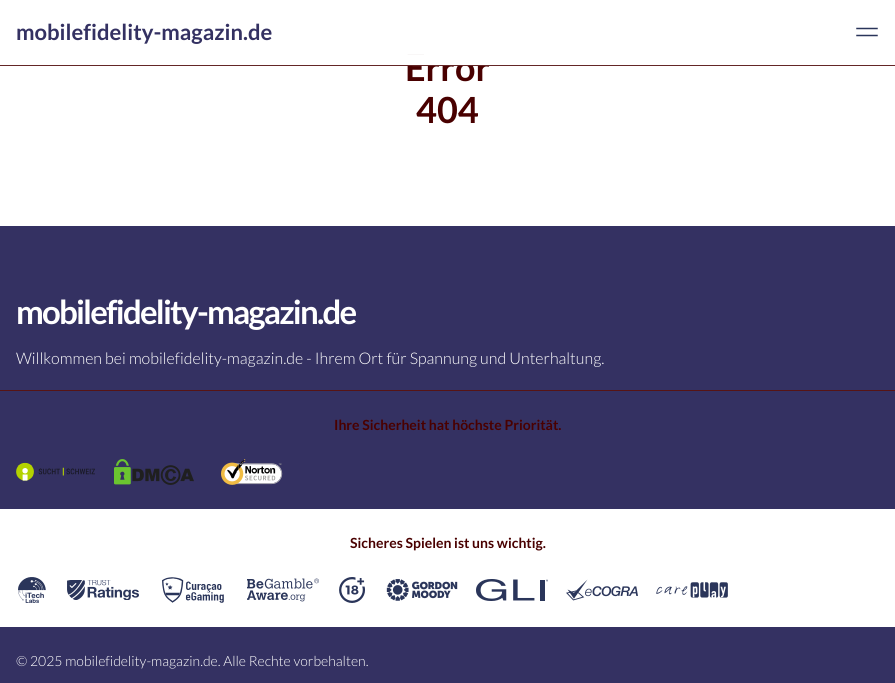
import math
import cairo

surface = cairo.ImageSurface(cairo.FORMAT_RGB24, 895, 683)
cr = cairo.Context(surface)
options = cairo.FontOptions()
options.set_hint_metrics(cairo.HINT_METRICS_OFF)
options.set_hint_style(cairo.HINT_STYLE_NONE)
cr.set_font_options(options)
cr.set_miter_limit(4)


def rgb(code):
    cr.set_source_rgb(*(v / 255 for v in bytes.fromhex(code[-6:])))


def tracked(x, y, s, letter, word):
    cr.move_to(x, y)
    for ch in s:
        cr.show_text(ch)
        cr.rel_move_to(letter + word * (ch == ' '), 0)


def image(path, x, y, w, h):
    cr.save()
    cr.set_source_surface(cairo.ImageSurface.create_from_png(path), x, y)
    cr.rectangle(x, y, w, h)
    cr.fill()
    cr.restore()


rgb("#ffffff")
cr.paint()
cr.new_path()
cr.move_to(857, 28.5)
cr.line_to(877, 28.5)
cr.move_to(857, 35.5)
cr.line_to(877, 35.5)
rgb("#2a355a")
cr.set_line_width(1.5)
cr.set_line_cap(cairo.LINE_CAP_SQUARE)
cr.stroke()
rgb("#343162")
cr.rectangle(0, 226, 895, 457)
cr.fill()
rgb("#571414")
cr.rectangle(0, 390, 895, 1)
cr.fill()
image("img/1.png", 16, 462, 79, 19)
image("img/2.png", 114, 459, 80, 26)
image("img/3.png", 221, 459, 62, 26)
rgb("#ffffff")
cr.rectangle(0, 509, 895, 118)
cr.fill()
image("img/4.png", 18, 577, 28, 26)
image("img/5.png", 67, 580, 72, 20)
image("img/6.png", 162, 577, 62, 26)
image("img/7.png", 247, 578, 72, 24)
image("img/8.png", 339, 577, 26, 26)
image("img/9.png", 386, 579, 72, 22)
image("img/10.png", 476, 579, 72, 22)
image("img/11.png", 566, 579, 72, 22)
image("img/12.png", 656, 582, 72, 16)
cr.select_font_face("Lato", cairo.FONT_SLANT_NORMAL, cairo.FONT_WEIGHT_BOLD)
cr.set_font_size(22)
rgb("#343162")
cr.move_to(16, 40)
cr.show_text("mobilefidelity-magazin.de")
cr.set_font_size(36)
rgb("#490000")
cr.move_to(405, 81)
cr.show_text("Error")
rgb("#642626")
cr.rectangle(0, 65, 895, 1)
cr.fill()
rgb("#ffffff")
cr.rectangle(407, 55, 83, 10)
cr.fill()
rgb("#490000")
cr.move_to(416, 123)
cr.show_text("404")
cr.set_font_size(33)
rgb("#ffffff")
tracked(16, 324, "mobilefidelity-magazin.de", -1.8, 0)
cr.select_font_face("Lato Light")
cr.set_font_size(16)
cr.move_to(16, 364)
cr.show_text("Willkommen bei mobilefidelity-magazin.de - Ihrem Ort für Spannung und Unterhaltung.")
cr.select_font_face("Lato", cairo.FONT_SLANT_NORMAL, cairo.FONT_WEIGHT_BOLD)
cr.set_font_size(14)
rgb("#490000")
cr.move_to(334, 430)
cr.show_text("Ihre Sicherheit hat höchste Priorität.")
cr.move_to(350, 548)
cr.show_text("Sicheres Spielen ist uns wichtig.")
cr.select_font_face("Lato Light")
rgb("#ffffff")
cr.move_to(16, 666)
cr.show_text("© 2025 mobilefidelity-magazin.de. Alle Rechte vorbehalten.")
surface.write_to_png("page.png")
